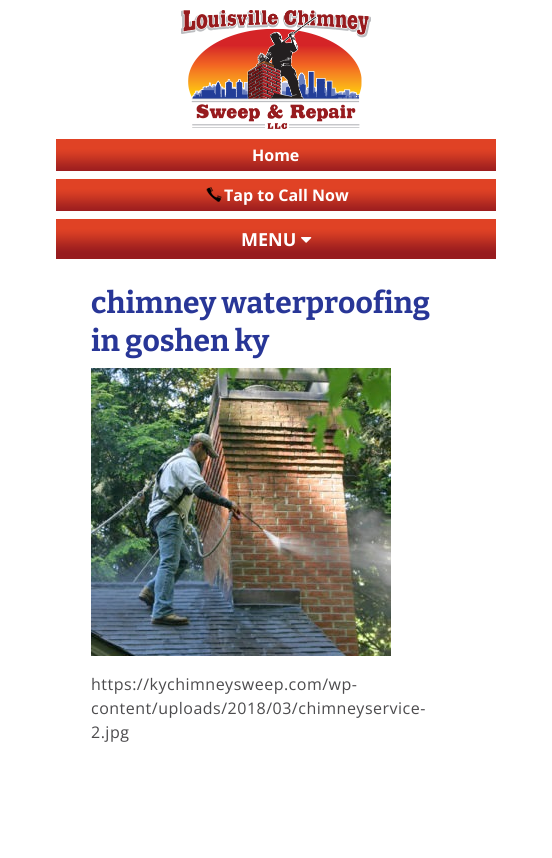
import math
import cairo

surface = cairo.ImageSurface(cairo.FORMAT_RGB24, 552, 858)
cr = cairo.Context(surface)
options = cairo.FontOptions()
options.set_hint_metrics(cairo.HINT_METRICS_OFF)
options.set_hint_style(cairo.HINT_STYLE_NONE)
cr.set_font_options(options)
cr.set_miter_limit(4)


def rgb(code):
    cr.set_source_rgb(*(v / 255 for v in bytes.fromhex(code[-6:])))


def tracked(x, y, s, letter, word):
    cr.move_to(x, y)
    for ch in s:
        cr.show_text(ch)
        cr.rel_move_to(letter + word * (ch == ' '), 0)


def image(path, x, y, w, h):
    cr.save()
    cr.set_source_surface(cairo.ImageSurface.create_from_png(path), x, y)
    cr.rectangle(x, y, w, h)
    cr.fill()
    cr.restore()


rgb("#ffffff")
cr.paint()
image("img/1.png", 181, 10, 190, 119)
image("img/2.png", 56, 139, 440, 32)
image("img/2.png", 56, 179, 440, 32)
image("img/3.png", 206, 187, 16, 15)
image("img/4.png", 56, 219, 440, 40)
image("img/5.png", 301, 237, 11, 6)
image("img/6.png", 91, 368, 300, 288)
cr.select_font_face("Open Sans", cairo.FONT_SLANT_NORMAL, cairo.FONT_WEIGHT_BOLD)
cr.set_font_size(16)
rgb("#ffffff")
cr.move_to(252, 161)
cr.show_text("Home")
cr.move_to(224, 201)
cr.show_text("Tap to Call Now")
cr.set_font_size(18)
cr.move_to(241, 246)
cr.show_text("MENU")
cr.select_font_face("Bitter", cairo.FONT_SLANT_NORMAL, cairo.FONT_WEIGHT_BOLD)
cr.set_font_size(30)
rgb("#283697")
cr.move_to(91, 313)
cr.show_text("chimney waterproofing")
cr.move_to(91, 351)
cr.show_text("in goshen ky")
cr.select_font_face("Open Sans")
cr.set_font_size(16)
rgb("#4c4b4d")
for x, y, s in [
    (91, 690, "https://kychimneysweep.com/wp-"),
    (91, 714, "content/uploads/2018/03/chimneyservice-"),
    (91, 738, "2.jpg"),
]:
    tracked(x, y, s, 0.5, 0)
surface.write_to_png("page.png")
